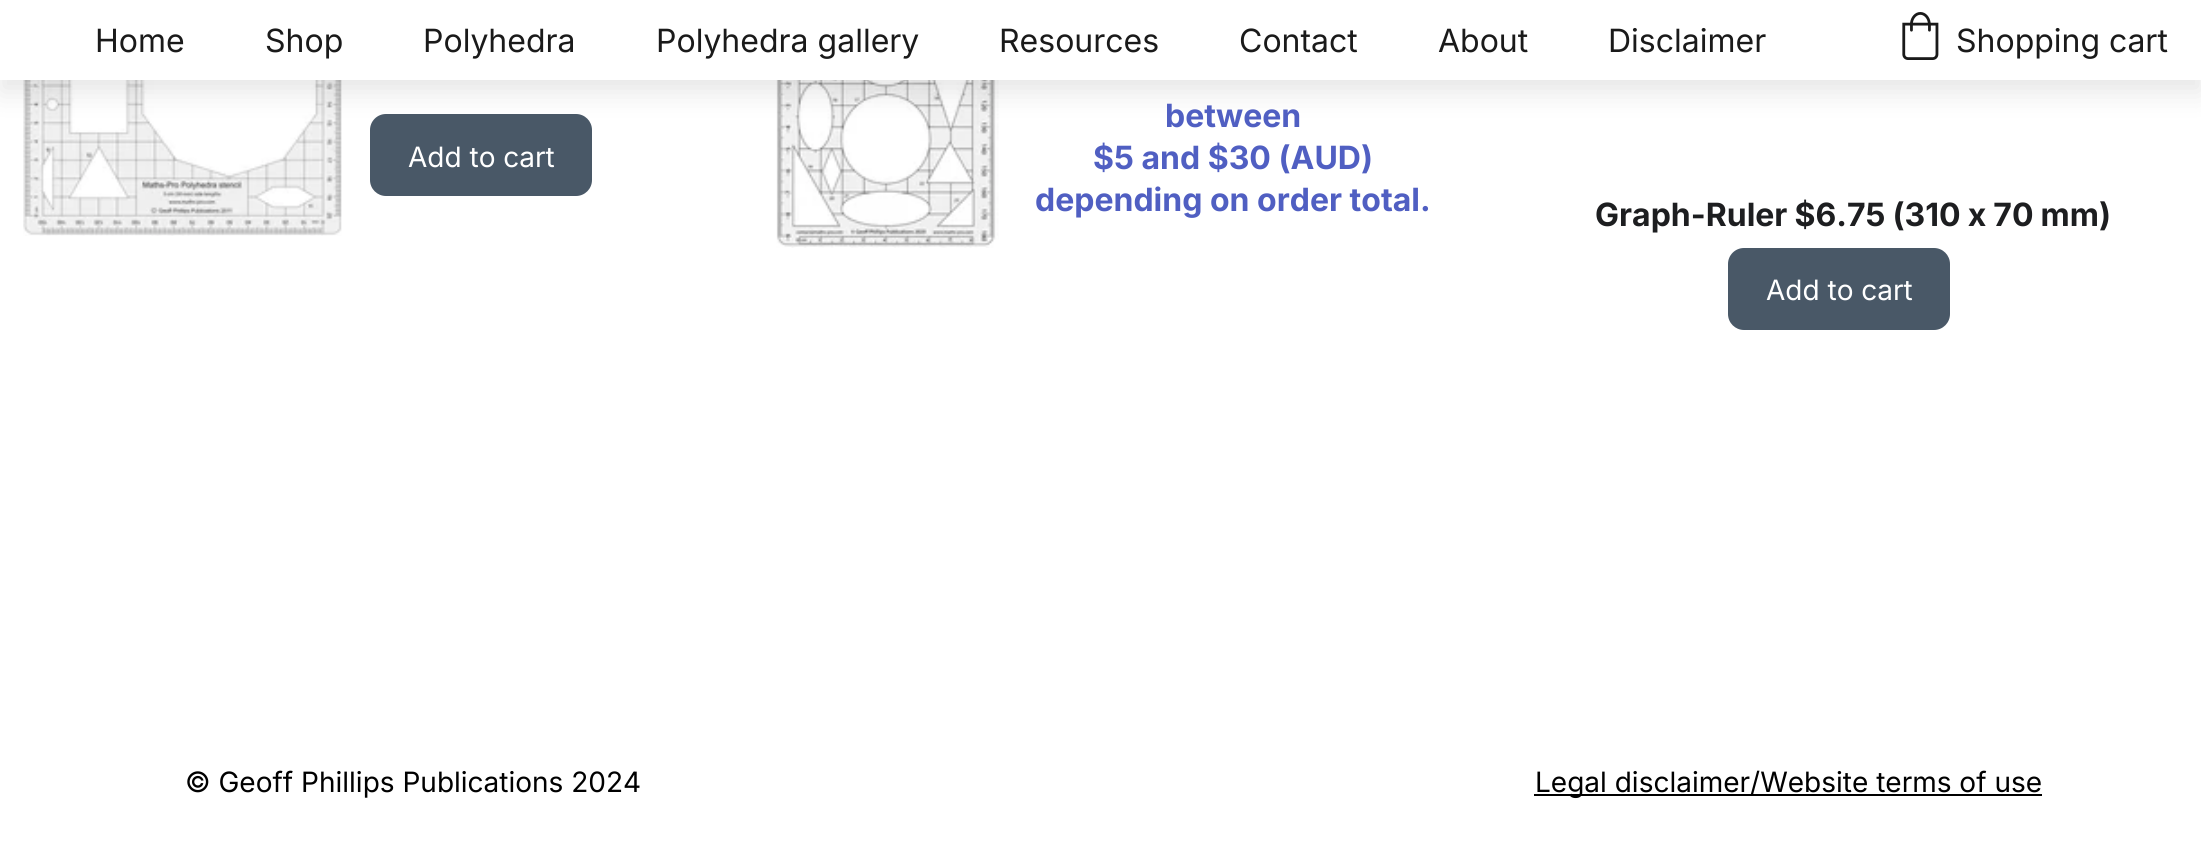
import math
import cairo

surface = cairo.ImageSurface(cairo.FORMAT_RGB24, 2201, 860)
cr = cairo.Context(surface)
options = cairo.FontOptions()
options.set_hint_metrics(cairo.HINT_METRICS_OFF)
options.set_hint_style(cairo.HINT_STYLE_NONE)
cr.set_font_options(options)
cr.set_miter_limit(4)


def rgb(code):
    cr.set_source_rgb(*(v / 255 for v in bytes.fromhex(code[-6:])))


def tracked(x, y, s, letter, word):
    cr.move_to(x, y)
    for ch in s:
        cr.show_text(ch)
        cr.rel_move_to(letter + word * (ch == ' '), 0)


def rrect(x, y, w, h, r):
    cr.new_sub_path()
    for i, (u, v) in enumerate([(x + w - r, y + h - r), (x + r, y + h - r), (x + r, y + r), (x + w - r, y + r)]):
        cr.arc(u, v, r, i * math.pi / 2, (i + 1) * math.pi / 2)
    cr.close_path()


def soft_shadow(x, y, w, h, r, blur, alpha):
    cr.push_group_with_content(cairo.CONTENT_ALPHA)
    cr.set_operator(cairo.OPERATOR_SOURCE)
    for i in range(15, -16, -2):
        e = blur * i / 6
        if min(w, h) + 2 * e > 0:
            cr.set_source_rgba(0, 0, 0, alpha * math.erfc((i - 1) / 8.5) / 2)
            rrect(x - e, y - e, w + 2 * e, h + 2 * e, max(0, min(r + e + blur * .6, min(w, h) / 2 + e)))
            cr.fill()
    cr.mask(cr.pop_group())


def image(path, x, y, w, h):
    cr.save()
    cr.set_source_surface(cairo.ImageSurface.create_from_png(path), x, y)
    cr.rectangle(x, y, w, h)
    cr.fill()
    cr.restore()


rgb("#ffffff")
cr.paint()
image("img/2.png", 23, 80, 319, 156)
rgb("#495867")
rrect(370, 114, 222, 82, 16)
cr.fill()
image("img/3.png", 776, 80, 223, 168)
rgb("#000000")
soft_shadow(0, 12, 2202, 80, 0, 14, 0.1)
rgb("#ffffff")
cr.rectangle(0, 0, 2201, 80)
cr.fill()
image("img/1.png", 1902, 12, 37, 48)
rgb("#495867")
rrect(1728, 248, 222, 82, 16)
cr.fill()
rgb("#000000")
cr.rectangle(1534, 794, 508, 2)
cr.fill()
cr.select_font_face("Inter")
cr.set_font_size(32)
rgb("#1a1a1a")
for x, y, s in [
    (95, 52, "Home"),
    (265, 52, "Shop"),
    (423, 52, "Polyhedra"),
    (656, 52, "Polyhedra gallery"),
    (999, 52, "Resources"),
    (1239, 52, "Contact"),
    (1438, 52, "About"),
    (1608, 52, "Disclaimer"),
    (1956, 52, "Shopping cart"),
]:
    cr.move_to(x, y)
    cr.show_text(s)
cr.set_font_size(28)
rgb("#ffffff")
cr.move_to(408, 167)
cr.show_text("Add to cart")
cr.select_font_face("Inter", cairo.FONT_SLANT_NORMAL, cairo.FONT_WEIGHT_BOLD)
cr.set_font_size(32)
rgb("#505fc2")
for x, y, s in [
    (1165, 127, "between"),
    (1093, 169, "$5 and $30 (AUD)"),
    (1035, 211, "depending on order total."),
]:
    cr.move_to(x, y)
    cr.show_text(s)
rgb("#1d1e20")
tracked(1595, 226, "Graph-Ruler $6.75 (310 x 70 mm)", 0, -0.5)
cr.select_font_face("Inter")
cr.set_font_size(28)
rgb("#ffffff")
cr.move_to(1766, 300)
cr.show_text("Add to cart")
rgb("#000000")
cr.move_to(185, 792)
cr.show_text("© Geoff Phillips Publications 2024")
cr.move_to(1535, 792)
cr.show_text("Legal disclaimer/Website terms of use")
surface.write_to_png("page.png")
